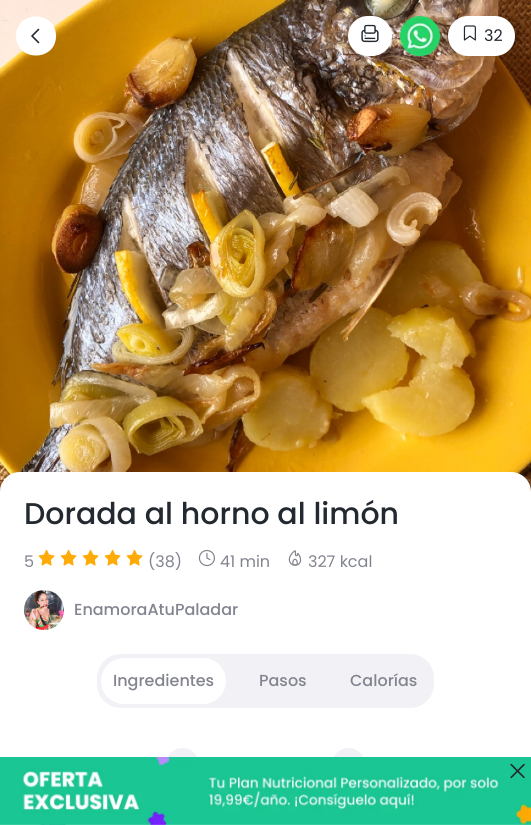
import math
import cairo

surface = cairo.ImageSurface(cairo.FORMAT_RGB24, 531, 825)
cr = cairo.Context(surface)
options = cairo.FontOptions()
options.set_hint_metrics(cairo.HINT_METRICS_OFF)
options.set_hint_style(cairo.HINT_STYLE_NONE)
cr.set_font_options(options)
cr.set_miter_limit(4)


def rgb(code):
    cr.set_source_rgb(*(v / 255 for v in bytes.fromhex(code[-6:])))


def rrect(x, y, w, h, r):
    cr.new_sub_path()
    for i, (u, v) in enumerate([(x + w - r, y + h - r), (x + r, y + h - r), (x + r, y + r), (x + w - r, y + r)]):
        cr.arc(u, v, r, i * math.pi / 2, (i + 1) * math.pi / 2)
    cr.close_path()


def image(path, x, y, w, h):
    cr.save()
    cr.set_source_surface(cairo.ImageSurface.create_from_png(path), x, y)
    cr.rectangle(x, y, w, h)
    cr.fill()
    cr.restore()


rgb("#ffffff")
cr.paint()
image("img/1.png", 0, 0, 531, 492)
rgb("#ffffff")
cr.new_path()
cr.move_to(56, 36)
cr.curve_to(56, 62, 16, 62, 16, 36)
cr.curve_to(16, 10, 56, 10, 56, 36)
cr.close_path()
cr.fill()
cr.new_path()
cr.move_to(38.5, 29.5)
cr.line_to(32, 36)
cr.line_to(38.5, 42.5)
rgb("#232930")
cr.set_line_width(1.6)
cr.set_line_cap(cairo.LINE_CAP_ROUND)
cr.set_line_join(cairo.LINE_JOIN_ROUND)
cr.stroke()
rgb("#ffffff")
rrect(348, 16, 44, 40, 20)
cr.fill()
image("img/2.png", 361, 24, 18, 19)
image("img/3.png", 400, 16, 40, 40)
rrect(448, 16, 67, 40, 20)
cr.fill()
image("img/4.png", 463, 25, 13, 16)
cr.new_path()
cr.move_to(20, 472)
cr.line_to(511, 472)
cr.curve_to(522, 472, 531, 481, 531, 492)
cr.line_to(531, 654)
cr.line_to(0, 654)
cr.line_to(0, 492)
cr.curve_to(0, 481, 9, 472, 20, 472)
cr.close_path()
cr.fill()
image("img/5.png", 38, 549, 17, 17)
image("img/5.png", 60, 549, 17, 17)
image("img/5.png", 82, 549, 17, 17)
image("img/5.png", 104, 549, 17, 17)
image("img/5.png", 126, 549, 17, 17)
image("img/6.png", 198, 549, 17, 18)
image("img/7.png", 288, 550, 14, 16)
image("img/8.png", 24, 590, 40, 40)
rgb("#f1f1f6")
rrect(97, 654, 337, 54, 24)
cr.fill()
rgb("#ffffff")
rrect(101, 658, 125, 46, 23)
cr.fill()
rgb("#f1f1f6")
cr.arc(182.5, 764.5, 16.5, 0, 2 * math.pi)
cr.fill()
cr.arc(348.5, 764.5, 16.5, 0, 2 * math.pi)
cr.fill()
image("img/9.png", 38, 824, 30, 1)
image("img/10.png", 0, 757, 531, 68)
image("img/11.png", 510, 763, 15, 16)
cr.select_font_face("Poppins")
cr.set_font_size(16)
rgb("#232930")
cr.move_to(484, 41)
cr.show_text("32")
cr.select_font_face("Poppins Medium")
cr.set_font_size(30)
cr.move_to(24, 524)
cr.show_text("Dorada al horno al limón")
cr.select_font_face("Poppins")
cr.set_font_size(16)
rgb("#82848f")
for x, y, s in [
    (24, 567, "5"),
    (148, 567, "(38)"),
    (220, 567, "41 min"),
    (308, 567, "327 kcal"),
]:
    cr.move_to(x, y)
    cr.show_text(s)
cr.select_font_face("Poppins Medium")
for x, y, s in [
    (74, 615, "EnamoraAtuPaladar"),
    (113, 686, "Ingredientes"),
    (259, 686, "Pasos"),
    (350, 686, "Calorías"),
]:
    cr.move_to(x, y)
    cr.show_text(s)
surface.write_to_png("page.png")
